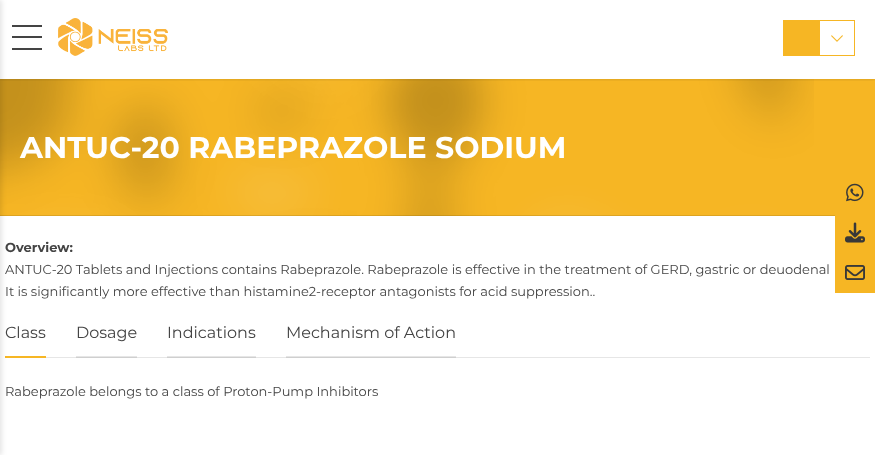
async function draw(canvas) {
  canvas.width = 875;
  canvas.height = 455;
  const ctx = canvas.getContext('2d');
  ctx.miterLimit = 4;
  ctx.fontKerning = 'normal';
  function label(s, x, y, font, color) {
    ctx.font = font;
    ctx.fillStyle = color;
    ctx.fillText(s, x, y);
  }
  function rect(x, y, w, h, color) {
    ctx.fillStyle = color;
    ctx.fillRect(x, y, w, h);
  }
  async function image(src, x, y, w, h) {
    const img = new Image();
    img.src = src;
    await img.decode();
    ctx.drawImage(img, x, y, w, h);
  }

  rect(0, 0, 875, 455, '#fff');
  rect(286, 356, 170, 1, '#e6e6e6');
  rect(167, 356, 89, 1, '#e6e6e6');
  rect(76, 356, 61, 1, '#e6e6e6');
  rect(0, 79, 875, 137, '#f6b624');
  await image('assets/img3.png', 0, 79, 814, 137);
  rect(0, 215, 835, 1, '#0000001a');
  rect(5, 356, 41, 2, '#f6b624');
  ctx.fillStyle = '#0000001a';
  ctx.filter = 'blur(2.5px)';
  ctx.beginPath();
  ctx.rect(-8, 0, 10, 455);
  ctx.fill();
  ctx.filter = 'none';
  ctx.save();
  ctx.beginPath();
  ctx.rect(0, 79, 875, 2);
  ctx.clip();
  ctx.filter = 'blur(1.5px)';
  ctx.beginPath();
  ctx.rect(0, 1, 875, 79);
  ctx.fill();
  ctx.filter = 'none';
  ctx.restore();
  rect(12, 25, 30, 2, '#444');
  rect(12, 36, 30, 2, '#444');
  rect(12, 48, 30, 2, '#444');
  await image('assets/img1.png', 58, 18, 110, 38);
  rect(783, 20, 36, 36, '#f6b624');
  ctx.strokeStyle = '#f6b624';
  ctx.strokeRect(819.5, 20.5, 35, 35);
  await image('assets/img2.png', 831, 35, 12, 7);
  label('ANTUC-20 RABEPRAZOLE SODIUM', 20, 158, 'bold 30px Montserrat', '#fff');
  label('Overview:', 5, 252, 'bold 13px Montserrat', '#444');
  label('ANTUC-20 Tablets and Injections contains Rabeprazole. Rabeprazole is effective in the treatment of GERD, gastric or deuodenal', 5, 274, '13px Montserrat', '#444');
  label('It is significantly more effective than histamine2-receptor antagonists for acid suppression..', 5, 296, '13px Montserrat', '#444');
  rect(46, 357, 824, 1, '#e6e6e6');
  rect(286, 357, 170, 1, '#cfcfcf');
  rect(167, 357, 89, 1, '#cfcfcf');
  rect(76, 357, 61, 1, '#cfcfcf');
  label('Class', 5, 338, '16px Montserrat', '#444');
  label('Dosage', 76, 338, '16px Montserrat', '#444');
  label('Indications', 167, 338, '16px Montserrat', '#444');
  label('Mechanism of Action', 286, 338, '16px Montserrat', '#444');
  label('Rabeprazole belongs to a class of Proton-Pump Inhibitors', 5, 396, '13px Montserrat', '#444');
  await image('assets/img4.png', 846, 183, 18, 19);
  rect(835, 216, 40, 77, '#f6b624');
  await image('assets/img5.png', 845, 222, 20, 21);
  await image('assets/img6.png', 845, 265, 20, 15);
}

draw(document.querySelector('canvas'));
